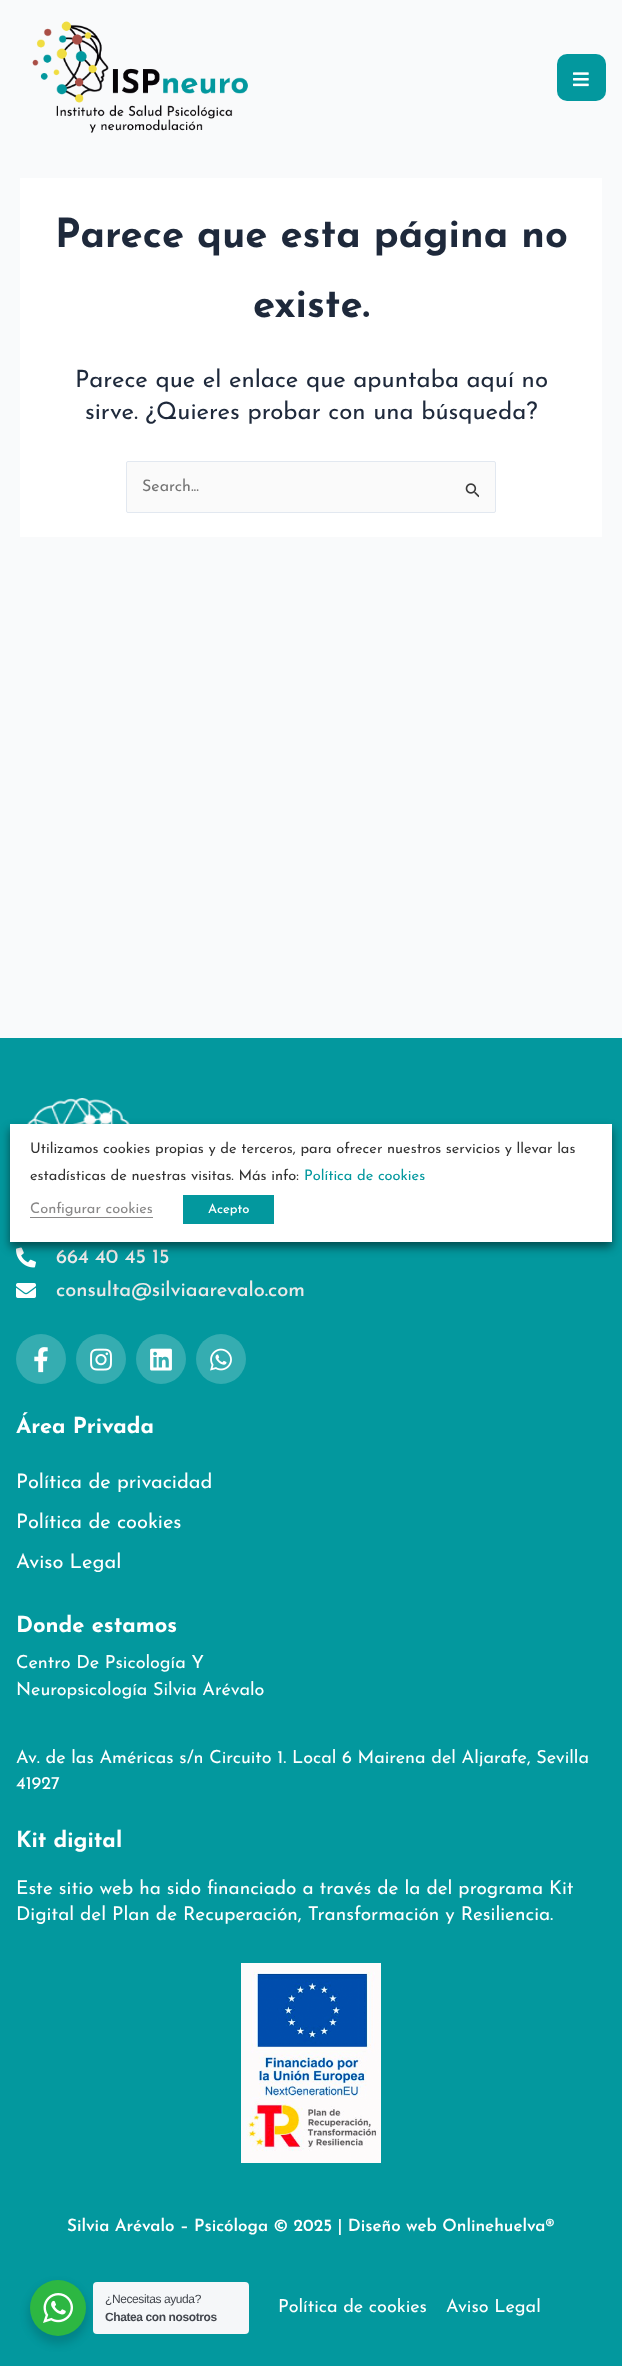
async function draw(canvas) {
  canvas.width = 622;
  canvas.height = 2366;
  const ctx = canvas.getContext('2d');
  ctx.miterLimit = 4;
  ctx.fontKerning = 'normal';
  function label(s, x, y, font, color) {
    ctx.font = font;
    ctx.fillStyle = color;
    ctx.fillText(s, x, y);
  }
  function rect(x, y, w, h, color) {
    ctx.fillStyle = color;
    ctx.fillRect(x, y, w, h);
  }
  function roundedRect(x, y, w, h, r, color) {
    ctx.fillStyle = color;
    ctx.beginPath();
    ctx.roundRect(x, y, w, h, r);
    ctx.fill();
  }
  async function image(src, x, y, w, h) {
    const img = new Image();
    img.src = src;
    await img.decode();
    ctx.drawImage(img, x, y, w, h);
  }

  rect(0, 0, 622, 2366, '#f9fafb');
  await image('assets/img1.png', 32, 21, 216, 112);
  roundedRect(557, 54, 49, 47, 10, '#03989e');
  await image('assets/img2.png', 573, 72, 16, 15);
  rect(20, 178, 582, 359, '#fff');
  label('Parece que esta página no', 55, 247, 'bold 40px Josefin Sans', '#1e293b');
  label('existe.', 253, 317, 'bold 40px Josefin Sans', '#1e293b');
  label('Parece que el enlace que apuntaba aquí no', 75, 387, '24px Josefin Sans', '#1e293b');
  label('sirve. ¿Quieres probar con una búsqueda?', 85, 419, '24px Josefin Sans', '#1e293b');
  ctx.fillStyle = '#fafafa';
  ctx.beginPath();
  ctx.roundRect(126.5, 461.5, 369, 51, 1.5);
  ctx.fill();
  ctx.strokeStyle = '#e2e8f0';
  ctx.stroke();
  label('Search...', 142, 491, '16px Josefin Sans', '#757575');
  await image('assets/img3.png', 465, 483, 14, 15);
  rect(0, 1038, 622, 1328, '#03989e');
  await image('assets/img4.png', 27, 1098, 103, 26);
  await image('assets/img5.png', 16, 1247, 20, 21);
  label('664 40 45 15', 56, 1263, '500 20px Josefin Sans', '#ece9e9');
  await image('assets/img6.png', 16, 1283, 20, 15);
  label('consulta@silviaarevalo.com', 56, 1296, '500 20px Josefin Sans', '#ece9e9');
  ctx.fillStyle = '#35adb1';
  ctx.beginPath();
  ctx.arc(41, 1359, 25, 0, 2 * Math.PI);
  ctx.fill();
  await image('assets/img7.png', 34, 1347, 14, 26);
  ctx.beginPath();
  ctx.arc(101, 1359, 25, 0, 2 * Math.PI);
  ctx.fill();
  await image('assets/img8.png', 90, 1348, 22, 23);
  ctx.beginPath();
  ctx.arc(161, 1359, 25, 0, 2 * Math.PI);
  ctx.fill();
  await image('assets/img9.png', 150, 1348, 22, 23);
  ctx.beginPath();
  ctx.arc(221, 1359, 25, 0, 2 * Math.PI);
  ctx.fill();
  await image('assets/img10.png', 210, 1348, 22, 23);
  label('Área Privada', 16, 1433, 'bold 22px Josefin Sans', '#fff');
  label('Política de privacidad', 16, 1488, '20px Josefin Sans', '#fff');
  label('Política de cookies', 16, 1528, '20px Josefin Sans', '#fff');
  label('Aviso Legal', 16, 1568, '20px Josefin Sans', '#fff');
  label('Donde estamos', 16, 1632, 'bold 22px Josefin Sans', '#fff');
  label('Centro De Psicología Y', 16, 1668, '18px Josefin Sans', '#fff');
  label('Neuropsicología Silvia Arévalo', 16, 1695, '18px Josefin Sans', '#fff');
  label('Av. de las Américas s/n Circuito 1. Local 6 Mairena del Aljarafe, Sevilla', 16, 1763, '18px Josefin Sans', '#fff');
  label('41927', 16, 1789, '18px Josefin Sans', '#fff');
  label('Kit digital', 16, 1847, 'bold 22px Josefin Sans', '#fff');
  label('Este sitio web ha sido financiado a través de la del programa Kit', 16, 1894, '19px Josefin Sans', '#fff');
  label('Digital del Plan de Recuperación, Transformación y Resiliencia.', 16, 1920, '19px Josefin Sans', '#fff');
  await image('assets/img11.png', 241, 1963, 140, 200);
  label('Silvia Arévalo – Psicóloga © 2025 | Diseño web Onlinehuelva®', 67, 2231, '600 17px Josefin Sans', '#fff');
  label('Política de cookies', 278, 2312, '18px Josefin Sans', '#fff');
  label('Aviso Legal', 446, 2312, '18px Josefin Sans', '#fff');
  ctx.fillStyle = '#00000080';
  ctx.filter = 'blur(5px)';
  ctx.beginPath();
  ctx.rect(10, 1129, 602, 118);
  ctx.fill();
  ctx.filter = 'none';
  rect(10, 1124, 602, 118, '#fff');
  label('Utilizamos cookies propias y de terceros, para ofrecer nuestros servicios y llevar las', 30, 1153, '14.65px Josefin Sans', '#333');
  label('estadísticas de nuestras visitas. Más info:', 30, 1180, '14.65px Josefin Sans', '#333');
  label('Política de cookies', 304, 1180, '14.65px Josefin Sans', '#03989e');
  label('Configurar cookies', 30, 1213, '14.65px Josefin Sans', '#898888');
  rect(30, 1217, 123, 1, '#898888');
  rect(183, 1195, 91, 29, '#03989e');
  label('Acepto', 208, 1213, '500 13px Josefin Sans', '#fff');
  ctx.fillStyle = '#00000024';
  ctx.filter = 'blur(4px)';
  ctx.beginPath();
  ctx.roundRect(28, 2284, 60, 60, 30);
  ctx.fill();
  ctx.filter = 'none';
  ctx.fillStyle = '#2db742';
  ctx.beginPath();
  ctx.arc(58, 2308, 28, 0, 2 * Math.PI);
  ctx.fill();
  await image('assets/img12.png', 43, 2293, 30, 30);
  roundedRect(93, 2282, 156, 52, 4, '#f5f7f9');
  ctx.letterSpacing = '-0.4px';
  label('¿Necesitas ayuda?', 105, 2303, '12px Liberation Sans', '#43474e');
  label('Chatea con nosotros', 105, 2321, 'bold 12px Liberation Sans', '#43474e');
}

draw(document.querySelector('canvas'));
